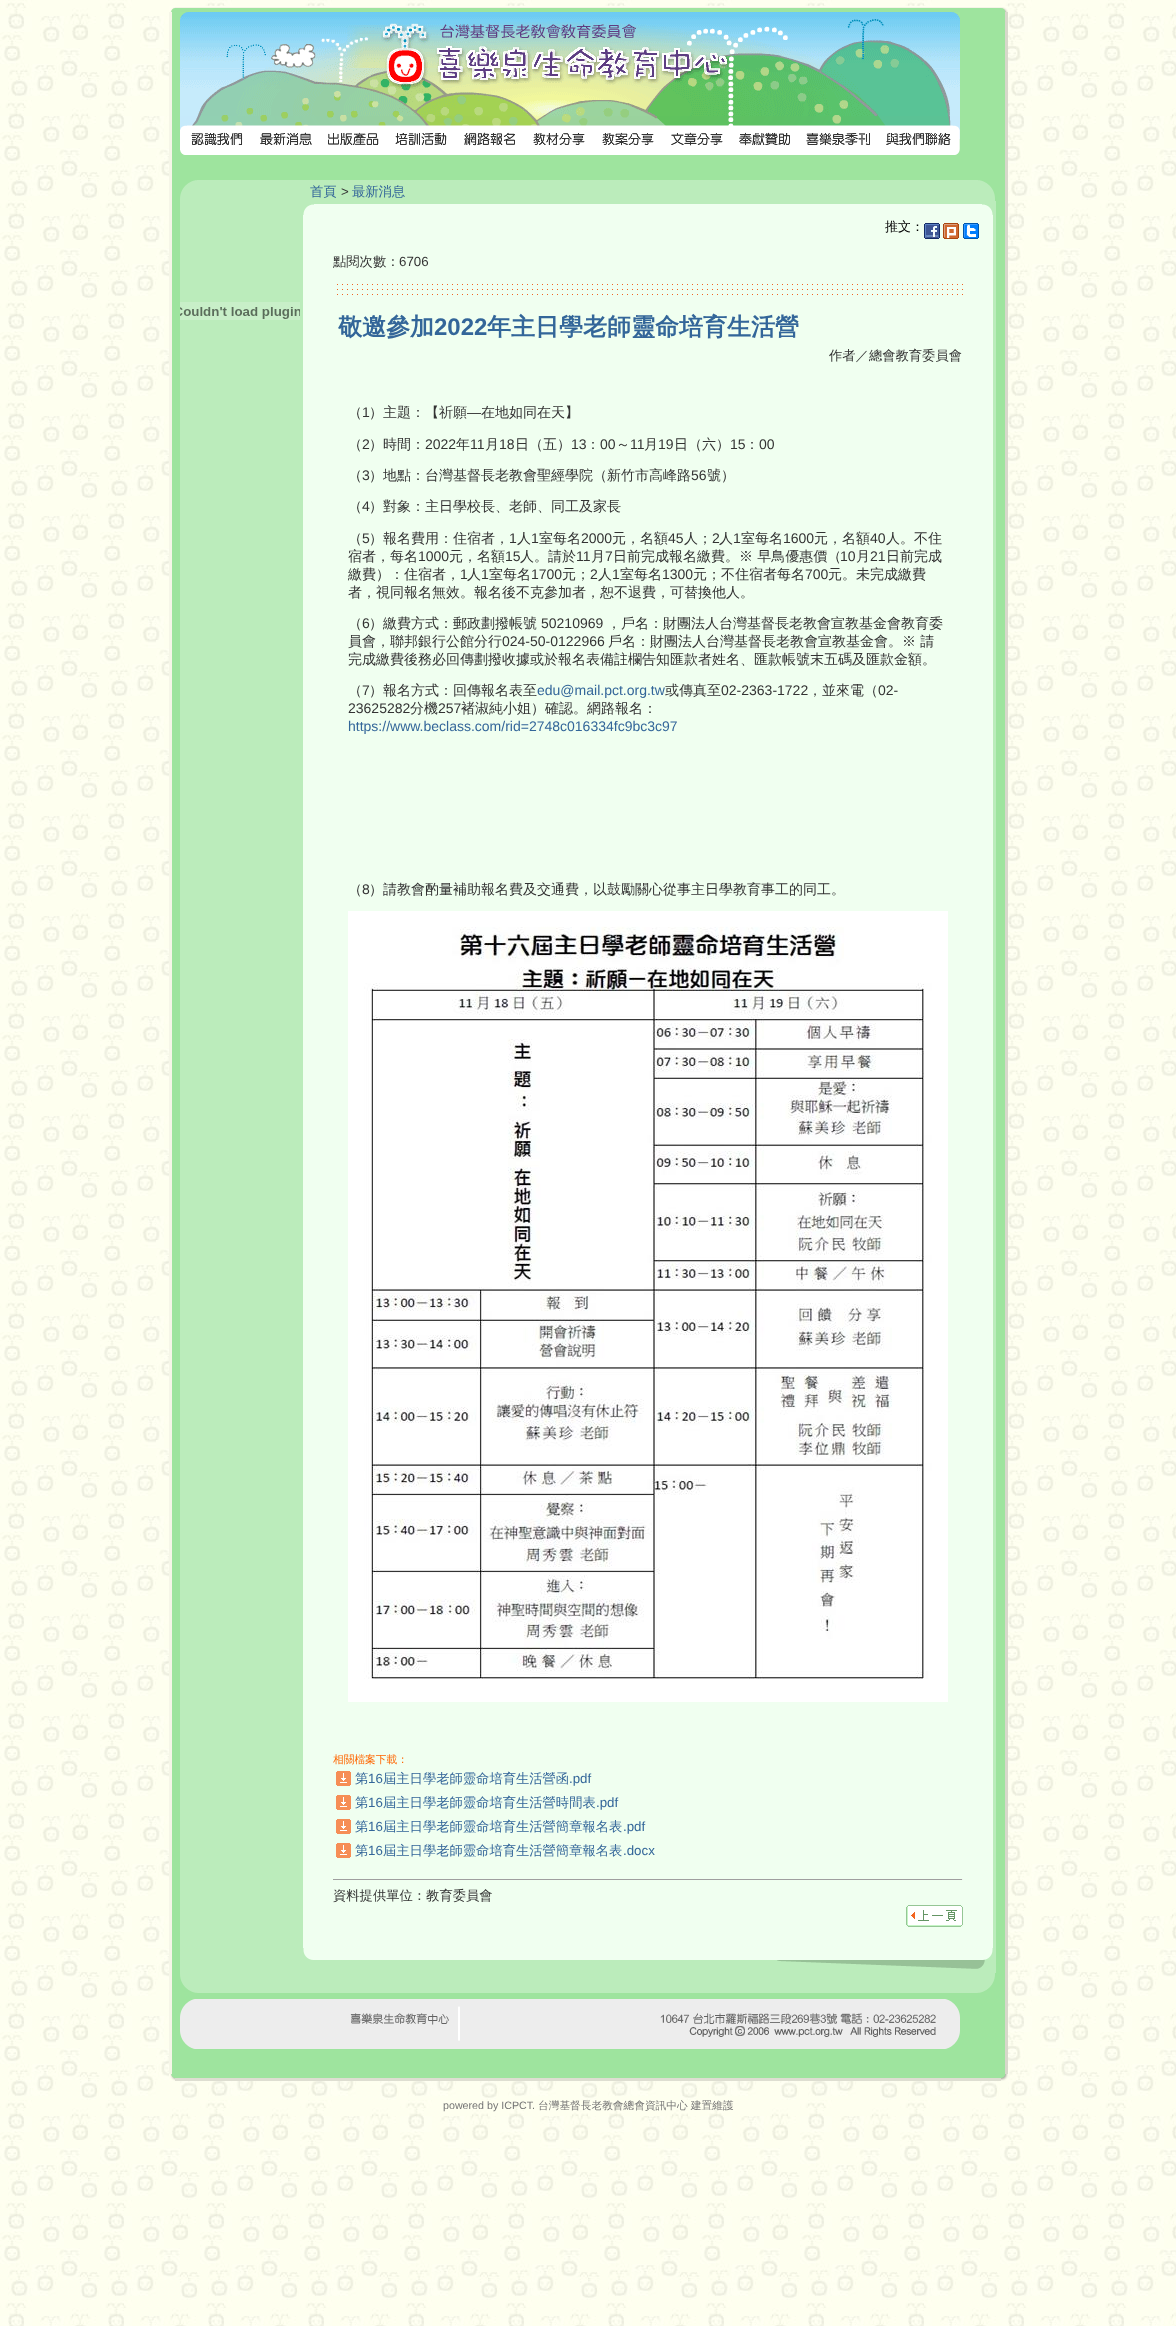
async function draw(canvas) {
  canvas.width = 1176;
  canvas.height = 2326;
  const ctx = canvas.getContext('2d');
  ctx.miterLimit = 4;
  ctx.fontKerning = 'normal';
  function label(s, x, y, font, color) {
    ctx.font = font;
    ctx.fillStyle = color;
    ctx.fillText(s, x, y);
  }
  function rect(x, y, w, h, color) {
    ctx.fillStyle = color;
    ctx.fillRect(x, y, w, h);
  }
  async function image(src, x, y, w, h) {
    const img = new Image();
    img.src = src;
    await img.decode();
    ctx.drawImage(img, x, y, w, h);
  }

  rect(0, 0, 1176, 2326, '#fff');
  await image('assets/img1.png', 0, 0, 1176, 2326);
  rect(172, 8, 833, 2070, '#9ee49e');
  await image('assets/img2.png', 169, 6, 6, 6);
  await image('assets/img3.png', 175, 6, 826, 2);
  await image('assets/img4.png', 1001, 6, 7, 6);
  rect(169, 12, 3, 2062, '#f6f6e8');
  await image('assets/img5.png', 180, 12, 780, 104);
  await image('assets/img6.png', 180, 116, 71, 39);
  await image('assets/img7.png', 251, 116, 68, 39);
  await image('assets/img8.png', 319, 116, 69, 39);
  await image('assets/img9.png', 388, 116, 68, 39);
  await image('assets/img10.png', 456, 116, 68, 39);
  await image('assets/img11.png', 524, 116, 70, 39);
  await image('assets/img12.png', 594, 116, 69, 39);
  await image('assets/img13.png', 663, 116, 68, 39);
  await image('assets/img14.png', 731, 116, 68, 39);
  await image('assets/img15.png', 799, 116, 79, 39);
  await image('assets/img16.png', 878, 116, 82, 39);
  rect(1005, 12, 3, 2062, '#d8d8cb');
  await image('assets/img17.png', 180, 180, 20, 21);
  rect(200, 180, 775, 21, '#bbecbb');
  label('首頁', 310, 196, '500 13.3px WenQuanYi Zen Hei', '#369');
  label('>', 341, 196, '13.3px Liberation Sans', '#333');
  label('最新消息', 352, 196, '500 13.3px WenQuanYi Zen Hei', '#369');
  await image('assets/img18.png', 975, 180, 20, 21);
  rect(180, 201, 816, 1772, '#bbecbb');
  await image('assets/img19.png', 180, 302, 120, 18);
  await image('assets/img20.png', 303, 204, 11, 11);
  rect(314, 204, 668, 11, '#f0fff0');
  await image('assets/img21.png', 982, 204, 11, 11);
  rect(303, 215, 690, 1733, '#f0fff0');
  label('推文：', 885, 231, '500 13px WenQuanYi Zen Hei', '#000');
  await image('assets/img22.png', 924, 223, 16, 16);
  await image('assets/img23.png', 943, 223, 16, 16);
  await image('assets/img24.png', 963, 223, 16, 16);
  label('點閱次數：', 333, 266, '500 13.3px WenQuanYi Zen Hei', '#333');
  label('6706', 399, 266, '13.3px Liberation Sans', '#333');
  await image('assets/img25.png', 337, 284, 626, 11);
  label('敬邀參加', 338, 335, 'bold 24px WenQuanYi Zen Hei', '#369');
  label('2022', 434, 335, 'bold 24px Liberation Sans', '#369');
  label('年主日學老師靈命培育生活營', 487, 335, 'bold 24px WenQuanYi Zen Hei', '#369');
  label('作者／總會教育委員會', 829, 360, '500 13.3px WenQuanYi Zen Hei', '#333');
  label('（', 348, 417, '500 14px WenQuanYi Zen Hei', '#333');
  label('1', 362, 417, '14px Liberation Sans', '#333');
  label('）主題：【祈願', 369, 417, '500 14px WenQuanYi Zen Hei', '#333');
  label('—', 467, 417, '14px Liberation Sans', '#333');
  label('在地如同在天】', 481, 417, '500 14px WenQuanYi Zen Hei', '#333');
  label('（', 348, 449, '500 14px WenQuanYi Zen Hei', '#333');
  label('2', 362, 449, '14px Liberation Sans', '#333');
  label('）時間：', 369, 449, '500 14px WenQuanYi Zen Hei', '#333');
  label('2022', 425, 449, '14px Liberation Sans', '#333');
  label('年', 456, 449, '500 14px WenQuanYi Zen Hei', '#333');
  label('11', 470, 449, '14px Liberation Sans', '#333');
  label('月', 485, 449, '500 14px WenQuanYi Zen Hei', '#333');
  label('18', 499, 449, '14px Liberation Sans', '#333');
  label('日（五）', 515, 449, '500 14px WenQuanYi Zen Hei', '#333');
  label('13', 571, 449, '14px Liberation Sans', '#333');
  label('：', 586, 449, '500 14px WenQuanYi Zen Hei', '#333');
  label('00', 600, 449, '14px Liberation Sans', '#333');
  label('～', 616, 449, '500 14px WenQuanYi Zen Hei', '#333');
  label('11', 630, 449, '14px Liberation Sans', '#333');
  label('月', 644, 449, '500 14px WenQuanYi Zen Hei', '#333');
  label('19', 658, 449, '14px Liberation Sans', '#333');
  label('日（六）', 674, 449, '500 14px WenQuanYi Zen Hei', '#333');
  label('15', 730, 449, '14px Liberation Sans', '#333');
  label('：', 745, 449, '500 14px WenQuanYi Zen Hei', '#333');
  label('00', 759, 449, '14px Liberation Sans', '#333');
  label('（', 348, 480, '500 14px WenQuanYi Zen Hei', '#333');
  label('3', 362, 480, '14px Liberation Sans', '#333');
  label('）地點：台灣基督長老教會聖經學院（新竹市高峰路', 369, 480, '500 14px WenQuanYi Zen Hei', '#333');
  label('56', 691, 480, '14px Liberation Sans', '#333');
  label('號）', 707, 480, '500 14px WenQuanYi Zen Hei', '#333');
  label('（', 348, 511, '500 14px WenQuanYi Zen Hei', '#333');
  label('4', 362, 511, '14px Liberation Sans', '#333');
  label('）對象：主日學校長、老師、同工及家長', 369, 511, '500 14px WenQuanYi Zen Hei', '#333');
  label('（', 348, 543, '500 14px WenQuanYi Zen Hei', '#333');
  label('5', 362, 543, '14px Liberation Sans', '#333');
  label('）報名費用：住宿者，', 369, 543, '500 14px WenQuanYi Zen Hei', '#333');
  label('1', 509, 543, '14px Liberation Sans', '#333');
  label('人', 517, 543, '500 14px WenQuanYi Zen Hei', '#333');
  label('1', 531, 543, '14px Liberation Sans', '#333');
  label('室每名', 539, 543, '500 14px WenQuanYi Zen Hei', '#333');
  label('2000', 581, 543, '14px Liberation Sans', '#333');
  label('元，名額', 612, 543, '500 14px WenQuanYi Zen Hei', '#333');
  label('45', 668, 543, '14px Liberation Sans', '#333');
  label('人；', 684, 543, '500 14px WenQuanYi Zen Hei', '#333');
  label('2', 712, 543, '14px Liberation Sans', '#333');
  label('人', 719, 543, '500 14px WenQuanYi Zen Hei', '#333');
  label('1', 733, 543, '14px Liberation Sans', '#333');
  label('室每名', 741, 543, '500 14px WenQuanYi Zen Hei', '#333');
  label('1600', 783, 543, '14px Liberation Sans', '#333');
  label('元，名額', 814, 543, '500 14px WenQuanYi Zen Hei', '#333');
  label('40', 870, 543, '14px Liberation Sans', '#333');
  label('人。不住', 886, 543, '500 14px WenQuanYi Zen Hei', '#333');
  label('宿者，每名', 348, 561, '500 14px WenQuanYi Zen Hei', '#333');
  label('1000', 418, 561, '14px Liberation Sans', '#333');
  label('元，名額', 449, 561, '500 14px WenQuanYi Zen Hei', '#333');
  label('15', 505, 561, '14px Liberation Sans', '#333');
  label('人。請於', 520, 561, '500 14px WenQuanYi Zen Hei', '#333');
  label('11', 576, 561, '14px Liberation Sans', '#333');
  label('月', 591, 561, '500 14px WenQuanYi Zen Hei', '#333');
  label('7', 605, 561, '14px Liberation Sans', '#333');
  label('日前完成報名繳費。※ 早鳥優惠價（', 613, 561, '500 14px WenQuanYi Zen Hei', '#333');
  label('10', 840, 561, '14px Liberation Sans', '#333');
  label('月', 856, 561, '500 14px WenQuanYi Zen Hei', '#333');
  label('21', 870, 561, '14px Liberation Sans', '#333');
  label('日前完成', 886, 561, '500 14px WenQuanYi Zen Hei', '#333');
  label('繳費）：住宿者，', 348, 579, '500 14px WenQuanYi Zen Hei', '#333');
  label('1', 460, 579, '14px Liberation Sans', '#333');
  label('人', 467, 579, '500 14px WenQuanYi Zen Hei', '#333');
  label('1', 481, 579, '14px Liberation Sans', '#333');
  label('室每名', 489, 579, '500 14px WenQuanYi Zen Hei', '#333');
  label('1700', 531, 579, '14px Liberation Sans', '#333');
  label('元；', 562, 579, '500 14px WenQuanYi Zen Hei', '#333');
  label('2', 590, 579, '14px Liberation Sans', '#333');
  label('人', 598, 579, '500 14px WenQuanYi Zen Hei', '#333');
  label('1', 612, 579, '14px Liberation Sans', '#333');
  label('室每名', 620, 579, '500 14px WenQuanYi Zen Hei', '#333');
  label('1300', 662, 579, '14px Liberation Sans', '#333');
  label('元；不住宿者每名', 693, 579, '500 14px WenQuanYi Zen Hei', '#333');
  label('700', 805, 579, '14px Liberation Sans', '#333');
  label('元。未完成繳費', 828, 579, '500 14px WenQuanYi Zen Hei', '#333');
  label('者，視同報名無效。報名後不克參加者，恕不退費，可替換他人。', 348, 597, '500 14px WenQuanYi Zen Hei', '#333');
  label('（', 348, 628, '500 14px WenQuanYi Zen Hei', '#333');
  label('6', 362, 628, '14px Liberation Sans', '#333');
  label('）繳費方式：郵政劃撥帳號', 369, 628, '500 14px WenQuanYi Zen Hei', '#333');
  label('50210969', 541, 628, '14px Liberation Sans', '#333');
  label('，戶名：財團法人台灣基督長老教會宣教基金會教育委', 607, 628, '500 14px WenQuanYi Zen Hei', '#333');
  label('員會，聯邦銀行公館分行', 348, 646, '500 14px WenQuanYi Zen Hei', '#333');
  label('024-50-0122966', 502, 646, '14px Liberation Sans', '#333');
  label('戶名：財團法人台灣基督長老教會宣教基金會。※ 請', 608, 646, '500 14px WenQuanYi Zen Hei', '#333');
  label('完成繳費後務必回傳劃撥收據或於報名表備註欄告知匯款者姓名、匯款帳號末五碼及匯款金額。', 348, 664, '500 14px WenQuanYi Zen Hei', '#333');
  label('（', 348, 695, '500 14px WenQuanYi Zen Hei', '#333');
  label('7', 362, 695, '14px Liberation Sans', '#333');
  label('）報名方式：回傳報名表至', 369, 695, '500 14px WenQuanYi Zen Hei', '#333');
  label('edu@mail.pct.org.tw', 537, 695, '14px Liberation Sans', '#369');
  label('或傳真至', 665, 695, '500 14px WenQuanYi Zen Hei', '#333');
  label('02-2363-1722', 721, 695, '14px Liberation Sans', '#333');
  label('，並來電（', 808, 695, '500 14px WenQuanYi Zen Hei', '#333');
  label('02-', 878, 695, '14px Liberation Sans', '#333');
  label('23625282', 348, 713, '14px Liberation Sans', '#333');
  label('分機', 410, 713, '500 14px WenQuanYi Zen Hei', '#333');
  label('257', 438, 713, '14px Liberation Sans', '#333');
  label('褚淑純小姐）確認。網路報名：', 461, 713, '500 14px WenQuanYi Zen Hei', '#333');
  label('https://www.beclass.com/rid=2748c016334fc9bc3c97', 348, 731, '14px Liberation Sans', '#369');
  label('（', 348, 894, '500 14px WenQuanYi Zen Hei', '#333');
  label('8', 362, 894, '14px Liberation Sans', '#333');
  label('）請教會酌量補助報名費及交通費，以鼓勵關心從事主日學教育事工的同工。', 369, 894, '500 14px WenQuanYi Zen Hei', '#333');
  await image('assets/img26.png', 348, 911, 600, 791);
  label('相關檔案下載：', 333, 1763, '500 10.7px WenQuanYi Zen Hei', '#f60');
  await image('assets/img27.png', 336, 1771, 15, 15);
  label('第', 355, 1783, '500 13.3px WenQuanYi Zen Hei', '#369');
  label('16', 368, 1783, '13.3px Liberation Sans', '#369');
  label('屆主日學老師靈命培育生活營函', 383, 1783, '500 13.3px WenQuanYi Zen Hei', '#369');
  label('.pdf', 569, 1783, '13.3px Liberation Sans', '#369');
  await image('assets/img27.png', 336, 1795, 15, 15);
  label('第', 355, 1807, '500 13.3px WenQuanYi Zen Hei', '#369');
  label('16', 368, 1807, '13.3px Liberation Sans', '#369');
  label('屆主日學老師靈命培育生活營時間表', 383, 1807, '500 13.3px WenQuanYi Zen Hei', '#369');
  label('.pdf', 596, 1807, '13.3px Liberation Sans', '#369');
  await image('assets/img27.png', 336, 1819, 15, 15);
  label('第', 355, 1831, '500 13.3px WenQuanYi Zen Hei', '#369');
  label('16', 368, 1831, '13.3px Liberation Sans', '#369');
  label('屆主日學老師靈命培育生活營簡章報名表', 383, 1831, '500 13.3px WenQuanYi Zen Hei', '#369');
  label('.pdf', 623, 1831, '13.3px Liberation Sans', '#369');
  await image('assets/img27.png', 336, 1843, 15, 15);
  label('第', 355, 1855, '500 13.3px WenQuanYi Zen Hei', '#369');
  label('16', 368, 1855, '13.3px Liberation Sans', '#369');
  label('屆主日學老師靈命培育生活營簡章報名表', 383, 1855, '500 13.3px WenQuanYi Zen Hei', '#369');
  label('.docx', 623, 1855, '13.3px Liberation Sans', '#369');
  rect(333, 1879, 630, 1, '#9f9f9f');
  rect(962, 1879, 1, 1, '#eee');
  label('資料提供單位：教育委員會', 333, 1900, '500 13.3px WenQuanYi Zen Hei', '#333');
  await image('assets/img28.png', 906, 1905, 57, 22);
  await image('assets/img29.png', 303, 1948, 11, 12);
  rect(314, 1948, 668, 12, '#f0fff0');
  await image('assets/img30.png', 777, 1960, 205, 9);
  await image('assets/img31.png', 982, 1948, 11, 18);
  await image('assets/img32.png', 180, 1973, 20, 20);
  rect(200, 1973, 775, 20, '#bbecbb');
  await image('assets/img33.png', 975, 1973, 20, 20);
  await image('assets/img34.png', 180, 1999, 780, 50);
  await image('assets/img35.png', 169, 2074, 6, 7);
  rect(175, 2078, 826, 3, '#deded1');
  await image('assets/img36.png', 1001, 2074, 7, 7);
  label('powered by ICPCT.', 443, 2109, '10.7px Liberation Sans', '#757575');
  label('台灣基督長老教會總會資訊中心 建置維護', 538, 2109, '500 10.7px WenQuanYi Zen Hei', '#757575');
}

draw(document.querySelector('canvas'));
